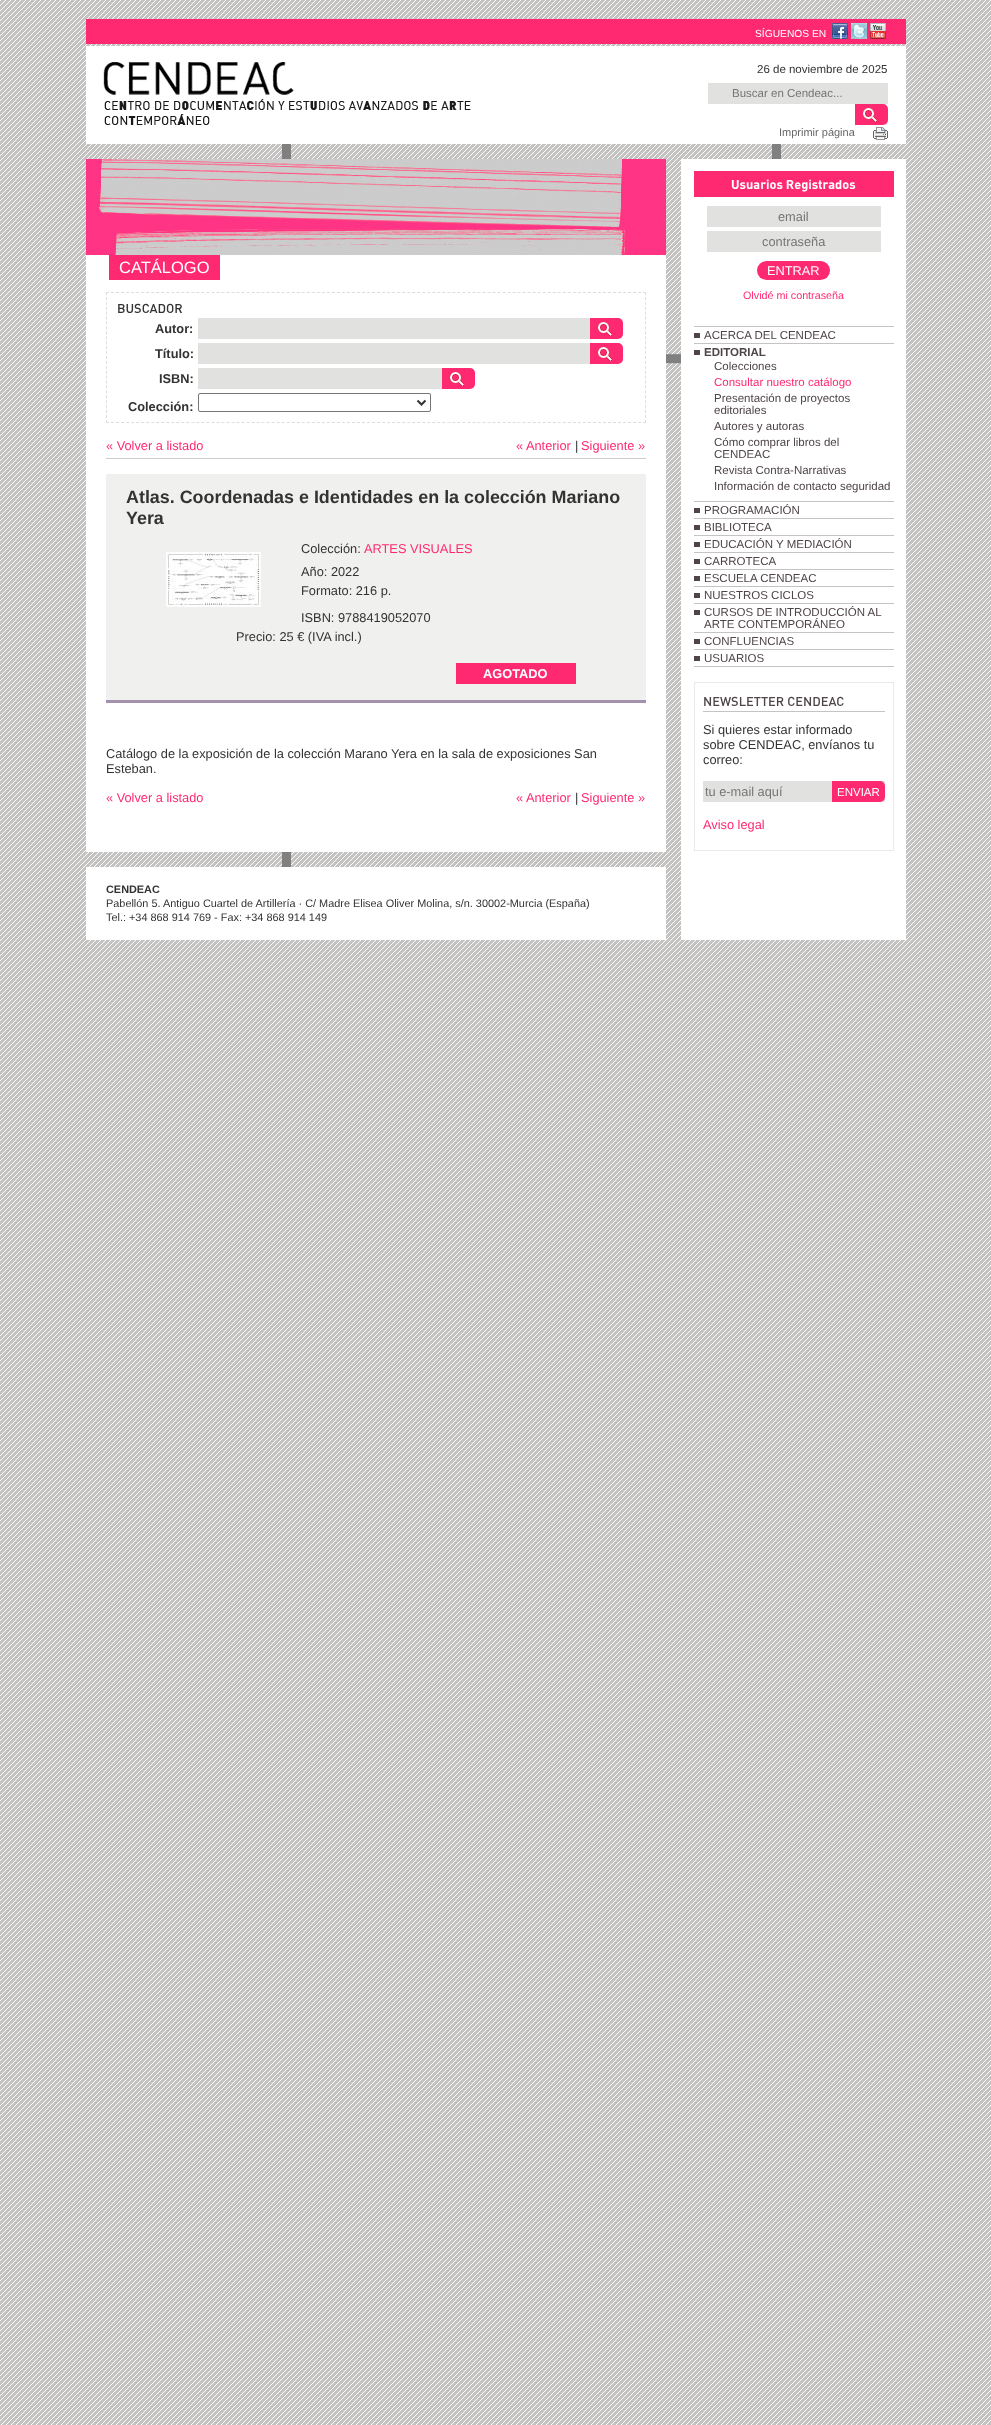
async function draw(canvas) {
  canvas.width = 991;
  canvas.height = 2425;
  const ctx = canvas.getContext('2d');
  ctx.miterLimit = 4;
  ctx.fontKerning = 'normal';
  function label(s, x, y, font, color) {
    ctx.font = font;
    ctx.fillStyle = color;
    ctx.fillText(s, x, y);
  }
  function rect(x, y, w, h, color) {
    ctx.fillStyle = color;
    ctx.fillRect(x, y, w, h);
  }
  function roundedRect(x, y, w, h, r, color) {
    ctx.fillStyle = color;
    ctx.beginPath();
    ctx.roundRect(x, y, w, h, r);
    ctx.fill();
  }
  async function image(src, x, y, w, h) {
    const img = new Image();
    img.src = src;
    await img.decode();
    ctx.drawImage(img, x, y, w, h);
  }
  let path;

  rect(0, 0, 991, 2425, '#c4c3c1');
  await image('assets/img1.png', 0, 0, 991, 2425);
  await image('assets/img2.png', 282, 144, 499, 723);
  rect(86, 19, 820, 25, '#ff2972');
  label('SÍGUENOS EN', 755, 37, '10.25px Liberation Sans', '#fff');
  await image('assets/img3.png', 832, 23, 16, 16);
  await image('assets/img4.png', 851, 23, 16, 16);
  await image('assets/img5.png', 870, 23, 16, 16);
  rect(86, 46, 820, 98, '#fff');
  await image('assets/img6.png', 103, 62, 368, 63);
  label('26 de noviembre de 2025', 757, 73, '11.5px Liberation Sans', '#333');
  rect(708, 83, 180, 21, '#e1e1e0');
  label('Buscar en Cendeac...', 732, 97, '11.5px Liberation Sans', '#757575');
  ctx.fillStyle = '#ff2972';
  ctx.beginPath();
  ctx.roundRect(855, 104, 33, 21, [0, 5, 5, 0]);
  ctx.fill();
  await image('assets/img7.png', 863, 108, 14, 14);
  await image('assets/img8.png', 873, 127, 15, 13);
  label('Imprimir página', 779, 136, '11px Liberation Sans', '#666');
  rect(681, 159, 225, 781, '#fff');
  await image('assets/img9.png', 86, 159, 580, 96);
  rect(694, 171, 200, 26, '#ff2972');
  label('Usuarios Registrados', 731, 189, 'bold 12.8px DIN', '#fff');
  rect(707, 206, 174, 21, '#e1e1e0');
  label('email', 778, 221, '12.8px Liberation Sans', '#757575');
  rect(707, 231, 174, 21, '#e1e1e0');
  label('contraseña', 762, 246, '12.8px Liberation Sans', '#757575');
  roundedRect(757, 261, 73, 19, 9.5, '#ff2972');
  label('ENTRAR', 767, 275, '12.8px Liberation Sans', '#fff');
  label('Olvidé mi contraseña', 743, 299, '10.75px Liberation Sans', '#ff2972');
  rect(694, 666, 200, 1, '#c4c4c2');
  rect(694, 333, 6, 5, '#4f4547');
  rect(694, 326, 200, 1, '#c4c4c2');
  label('ACERCA DEL CENDEAC', 704, 339, '11.5px Liberation Sans', '#4f4547');
  rect(694, 350, 6, 5, '#4f4547');
  rect(694, 343, 200, 1, '#c4c4c2');
  label('EDITORIAL', 704, 356, 'bold 11.5px Liberation Sans', '#4f4547');
  label('Colecciones', 714, 370, '11.5px Liberation Sans', '#4f4547');
  label('Consultar nuestro catálogo', 714, 386, '11.5px Liberation Sans', '#ff2972');
  label('Presentación de proyectos', 714, 402, '11.5px Liberation Sans', '#4f4547');
  label('editoriales', 714, 414, '11.5px Liberation Sans', '#4f4547');
  label('Autores y autoras', 714, 430, '11.5px Liberation Sans', '#4f4547');
  label('Cómo comprar libros del', 714, 446, '11.5px Liberation Sans', '#4f4547');
  label('CENDEAC', 714, 458, '11.5px Liberation Sans', '#4f4547');
  label('Revista Contra-Narrativas', 714, 474, '11.5px Liberation Sans', '#4f4547');
  label('Información de contacto seguridad', 714, 490, '11.5px Liberation Sans', '#4f4547');
  rect(694, 508, 6, 5, '#4f4547');
  rect(694, 501, 200, 1, '#c4c4c2');
  label('PROGRAMACIÓN', 704, 514, '11.5px Liberation Sans', '#4f4547');
  rect(694, 525, 6, 5, '#4f4547');
  rect(694, 518, 200, 1, '#c4c4c2');
  label('BIBLIOTECA', 704, 531, '11.5px Liberation Sans', '#4f4547');
  rect(694, 542, 6, 5, '#4f4547');
  rect(694, 535, 200, 1, '#c4c4c2');
  label('EDUCACIÓN Y MEDIACIÓN', 704, 548, '11.5px Liberation Sans', '#4f4547');
  rect(694, 559, 6, 5, '#4f4547');
  rect(694, 552, 200, 1, '#c4c4c2');
  label('CARROTECA', 704, 565, '11.5px Liberation Sans', '#4f4547');
  rect(694, 576, 6, 5, '#4f4547');
  rect(694, 569, 200, 1, '#c4c4c2');
  label('ESCUELA CENDEAC', 704, 582, '11.5px Liberation Sans', '#4f4547');
  rect(694, 593, 6, 5, '#4f4547');
  rect(694, 586, 200, 1, '#c4c4c2');
  label('NUESTROS CICLOS', 704, 599, '11.5px Liberation Sans', '#4f4547');
  rect(694, 610, 6, 5, '#4f4547');
  rect(694, 603, 200, 1, '#c4c4c2');
  label('CURSOS DE INTRODUCCIÓN AL', 704, 616, '11.5px Liberation Sans', '#4f4547');
  label('ARTE CONTEMPORÁNEO', 704, 628, '11.5px Liberation Sans', '#4f4547');
  rect(694, 639, 6, 5, '#4f4547');
  rect(694, 632, 200, 1, '#c4c4c2');
  label('CONFLUENCIAS', 704, 645, '11.5px Liberation Sans', '#4f4547');
  rect(694, 656, 6, 5, '#4f4547');
  rect(694, 649, 200, 1, '#c4c4c2');
  label('USUARIOS', 704, 662, '11.5px Liberation Sans', '#4f4547');
  ctx.strokeStyle = '#eae9e9';
  ctx.strokeRect(694.5, 682.5, 199, 168);
  rect(703, 711, 182, 1, '#c4c4c2');
  label('NEWSLETTER CENDEAC', 703, 706, '500 12.8px DIN', '#4f4547');
  label('Si quieres estar informado', 703, 734, '12.8px Liberation Sans', '#333');
  label('sobre CENDEAC, envíanos tu', 703, 749, '12.8px Liberation Sans', '#333');
  label('correo:', 703, 764, '12.8px Liberation Sans', '#333');
  rect(703, 781, 182, 21, '#e1e1e0');
  label('tu e-mail aquí', 705, 796, '12.8px Liberation Sans', '#757575');
  ctx.fillStyle = '#ff2972';
  ctx.beginPath();
  ctx.roundRect(832, 781, 53, 21, [0, 5, 5, 0]);
  ctx.fill();
  label('ENVIAR', 837, 796, '11.5px Liberation Sans', '#fff');
  label('Aviso legal', 703, 829, '12.8px Liberation Sans', '#ff2972');
  rect(86, 255, 580, 597, '#fff');
  rect(109, 255, 111, 25, '#ff2972');
  label('CATÁLOGO', 119, 273, '16.5px Liberation Sans', '#fff');
  path = new Path2D('M106 292.5H646');
  ctx.strokeStyle = '#ddd';
  ctx.setLineDash([3, 2.02]);
  ctx.stroke(path);
  path = new Path2D('M645.5 292V423');
  ctx.setLineDash([3, 1.92]);
  ctx.stroke(path);
  path = new Path2D('M106 422.5H646');
  ctx.setLineDash([3, 2.02]);
  ctx.stroke(path);
  path = new Path2D('M106.5 292V423');
  ctx.setLineDash([3, 1.92]);
  ctx.stroke(path);
  label('BUSCADOR', 117, 313, '500 12.8px DIN', '#333');
  label('Autor:', 155, 333, 'bold 12.8px Liberation Sans', '#333');
  rect(198, 318, 392, 21, '#e1e1e0');
  ctx.fillStyle = '#ff2972';
  ctx.beginPath();
  ctx.roundRect(590, 318, 33, 21, [0, 5, 5, 0]);
  ctx.fill();
  await image('assets/img7.png', 598, 322, 14, 14);
  label('Título:', 155, 358, 'bold 12.8px Liberation Sans', '#333');
  rect(198, 343, 392, 21, '#e1e1e0');
  ctx.fillStyle = '#ff2972';
  ctx.beginPath();
  ctx.roundRect(590, 343, 33, 21, [0, 5, 5, 0]);
  ctx.fill();
  await image('assets/img7.png', 598, 347, 14, 14);
  label('ISBN:', 159, 383, 'bold 12.8px Liberation Sans', '#333');
  rect(198, 368, 244, 21, '#e1e1e0');
  ctx.fillStyle = '#ff2972';
  ctx.beginPath();
  ctx.roundRect(442, 368, 33, 21, [0, 5, 5, 0]);
  ctx.fill();
  await image('assets/img7.png', 450, 372, 14, 14);
  label('Colección:', 128, 411, 'bold 12.8px Liberation Sans', '#333');
  ctx.beginPath();
  ctx.roundRect(198.5, 393.5, 232, 18, 1.5);
  ctx.strokeStyle = '#767676';
  ctx.setLineDash([]);
  ctx.stroke();
  path = new Path2D('M417.5 400.5L421.5 404.5L425.5 400.5');
  ctx.strokeStyle = '#333';
  ctx.lineWidth = 2;
  ctx.stroke(path);
  rect(106, 458, 540, 1, '#ccc');
  label('« Volver a listado', 106, 450, '12.8px Liberation Sans', '#ff2972');
  label('« Anterior', 516, 450, '12.8px Liberation Sans', '#ff2972');
  label('|', 575, 450, '12.8px Liberation Sans', '#333');
  label('Siguiente »', 581, 450, '12.8px Liberation Sans', '#ff2972');
  rect(106, 474, 540, 226, '#f0f0ef');
  rect(106, 700, 540, 3, '#a491ad');
  label('Atlas. Coordenadas e Identidades en la colección Mariano', 126, 503, 'bold 17.9px Liberation Sans', '#333');
  label('Yera', 126, 524, 'bold 17.9px Liberation Sans', '#333');
  await image('assets/img10.png', 166, 552, 95, 55);
  label('Colección:', 301, 553, '12.8px Liberation Sans', '#333');
  label('ARTES VISUALES', 364, 553, '12.8px Liberation Sans', '#ff2972');
  label('Año: 2022', 301, 576, '12.8px Liberation Sans', '#333');
  label('Formato: 216 p.', 301, 595, '12.8px Liberation Sans', '#333');
  label('ISBN: 9788419052070', 301, 622, '12.8px Liberation Sans', '#333');
  label('Precio: 25 € (IVA incl.)', 236, 641, '12.8px Liberation Sans', '#333');
  rect(456, 663, 120, 21, '#ff2972');
  label('AGOTADO', 483, 678, 'bold 12.8px Liberation Sans', '#fff');
  label('Catálogo de la exposición de la colección Marano Yera en la sala de exposiciones San', 106, 758, '12.8px Liberation Sans', '#333');
  label('Esteban.', 106, 773, '12.8px Liberation Sans', '#333');
  label('« Volver a listado', 106, 802, '12.8px Liberation Sans', '#ff2972');
  label('« Anterior', 516, 802, '12.8px Liberation Sans', '#ff2972');
  label('|', 575, 802, '12.8px Liberation Sans', '#333');
  label('Siguiente »', 581, 802, '12.8px Liberation Sans', '#ff2972');
  rect(86, 867, 580, 73, '#fff');
  label('CENDEAC', 106, 893, 'bold 10.9px Liberation Sans', '#333');
  label('Pabellón 5. Antiguo Cuartel de Artillería · C/ Madre Elisea Oliver Molina, s/n. 30002-Murcia (España)', 106, 907, '10.9px Liberation Sans', '#333');
  label('Tel.: +34 868 914 769 - Fax: +34 868 914 149', 106, 921, '10.9px Liberation Sans', '#333');
}

draw(document.querySelector('canvas'));
